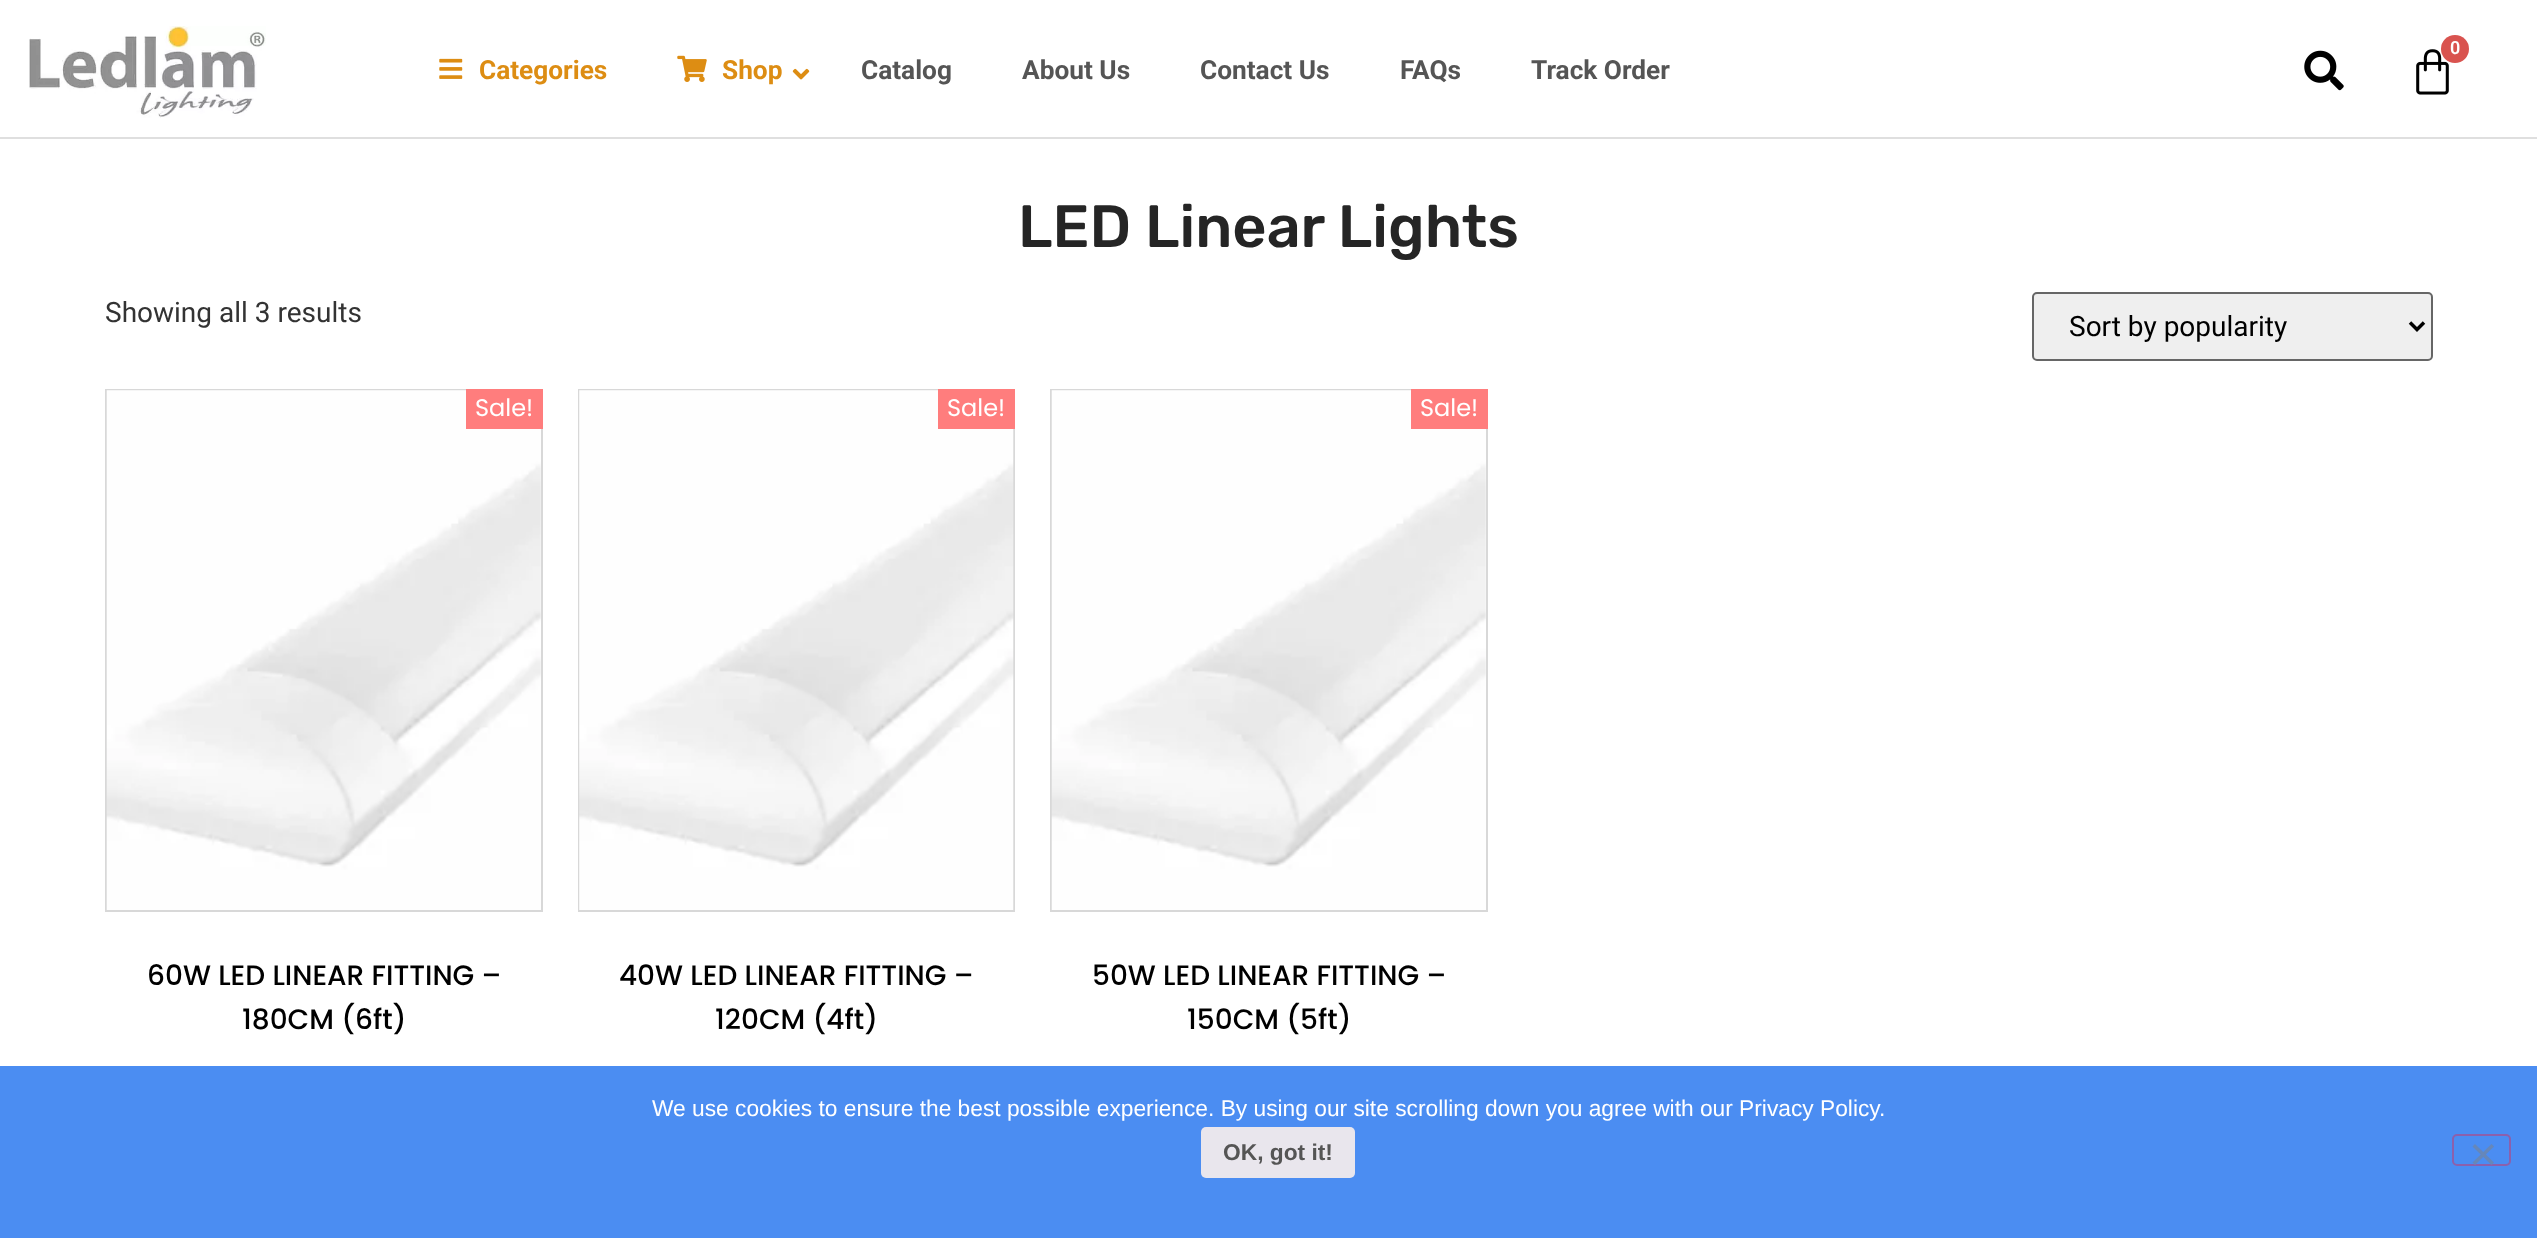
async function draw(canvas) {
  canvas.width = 2537;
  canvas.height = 1238;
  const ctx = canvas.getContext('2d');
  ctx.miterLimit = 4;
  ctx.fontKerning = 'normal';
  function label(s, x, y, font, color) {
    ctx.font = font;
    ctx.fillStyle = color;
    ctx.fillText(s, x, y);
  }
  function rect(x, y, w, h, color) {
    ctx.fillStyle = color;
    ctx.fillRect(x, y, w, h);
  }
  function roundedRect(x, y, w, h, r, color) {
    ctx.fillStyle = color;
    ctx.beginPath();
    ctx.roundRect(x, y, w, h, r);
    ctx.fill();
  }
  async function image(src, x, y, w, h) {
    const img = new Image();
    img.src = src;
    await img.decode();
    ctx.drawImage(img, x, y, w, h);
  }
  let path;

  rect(0, 0, 2537, 1238, '#fff');
  rect(0, 137, 2537, 2, '#dfdfdf');
  await image('assets/img1.png', 29, 26, 237, 92);
  await image('assets/img2.png', 2416, 49, 33, 46);
  ctx.fillStyle = '#d9534f';
  ctx.beginPath();
  ctx.arc(2455, 49, 14, 0, 2 * Math.PI);
  ctx.fill();
  label('0', 2450, 54, '600 18px Roboto', '#fff');
  await image('assets/img3.png', 439, 58, 24, 21);
  label('Categories', 479, 79, 'bold 26.25px Roboto', '#dd8d13');
  await image('assets/img4.png', 677, 55, 30, 27);
  label('Shop', 722, 79, 'bold 26.25px Roboto', '#dd8d13');
  await image('assets/img5.png', 792, 68, 18, 12);
  label('Catalog', 861, 79, 'bold 26.25px Roboto', '#555');
  label('About Us', 1022, 79, 'bold 26.25px Roboto', '#555');
  label('Contact Us', 1200, 79, 'bold 26.25px Roboto', '#555');
  label('FAQs', 1400, 79, 'bold 26.25px Roboto', '#555');
  label('Track Order', 1531, 79, 'bold 26.25px Roboto', '#555');
  await image('assets/img6.png', 2304, 50, 40, 41);
  label('LED Linear Lights', 1018, 247, '500 59.5px Rubik', '#252525');
  label('Showing all 3 results', 105, 322, '28px Roboto', '#333');
  ctx.fillStyle = '#efefef';
  ctx.beginPath();
  ctx.roundRect(2033, 293, 399, 67, 4);
  ctx.fill();
  ctx.strokeStyle = '#666';
  ctx.lineWidth = 2;
  ctx.stroke();
  path = new Path2D('M2410 322.5L2417 329.5L2424 322.5');
  ctx.strokeStyle = '#000';
  ctx.lineWidth = 3.5;
  ctx.stroke(path);
  label('Sort by popularity', 2069, 336, '28px Roboto', '#000');
  ctx.strokeStyle = '#d8d8d8';
  ctx.lineWidth = 2;
  ctx.strokeRect(106, 390, 436, 521);
  await image('assets/img7.png', 106, 390, 435, 520);
  rect(466, 389, 77, 40, '#ff7d7d');
  label('Sale!', 475, 416, '24px Poppins', '#fff');
  label('60W LED LINEAR FITTING –', 147, 985, '500 28px Poppins', '#000');
  label('180CM (6ft)', 242, 1029, '500 28px Poppins', '#000');
  ctx.strokeRect(579, 390, 435, 521);
  await image('assets/img8.png', 579, 390, 435, 520);
  rect(938, 389, 77, 40, '#ff7d7d');
  label('Sale!', 947, 416, '24px Poppins', '#fff');
  label('40W LED LINEAR FITTING –', 619, 985, '500 28px Poppins', '#000');
  label('120CM (4ft)', 715, 1029, '500 28px Poppins', '#000');
  ctx.strokeRect(1051, 390, 436, 521);
  await image('assets/img7.png', 1051, 390, 435, 520);
  rect(1411, 389, 77, 40, '#ff7d7d');
  label('Sale!', 1420, 416, '24px Poppins', '#fff');
  label('50W LED LINEAR FITTING –', 1092, 985, '500 28px Poppins', '#000');
  label('150CM (5ft)', 1187, 1029, '500 28px Poppins', '#000');
  rect(0, 1066, 2537, 172, '#4b8df2');
  label('We use cookies to ensure the best possible experience. By using our site scrolling down you agree with our Privacy Policy.', 652, 1116, '22.75px Liberation Sans', '#fff');
  roundedRect(1201, 1127, 154, 51, 5, '#e9e6ed');
  label('OK, got it!', 1223, 1160, 'bold 22.75px Liberation Sans', '#555');
  ctx.beginPath();
  ctx.roundRect(2453, 1135, 57, 30, 4);
  ctx.strokeStyle = '#8c60ac';
  ctx.stroke();
  ctx.fillStyle = '#6687b9';
  path = new Path2D('M2491.5 1144L2494 1146.5L2475 1165L2472.5 1162.5Z');
  ctx.fill(path);
  path = new Path2D('M2472.5 1146.5L2475 1144L2494 1162.5L2491.5 1165Z');
  ctx.fill(path);
}

draw(document.querySelector('canvas'));
